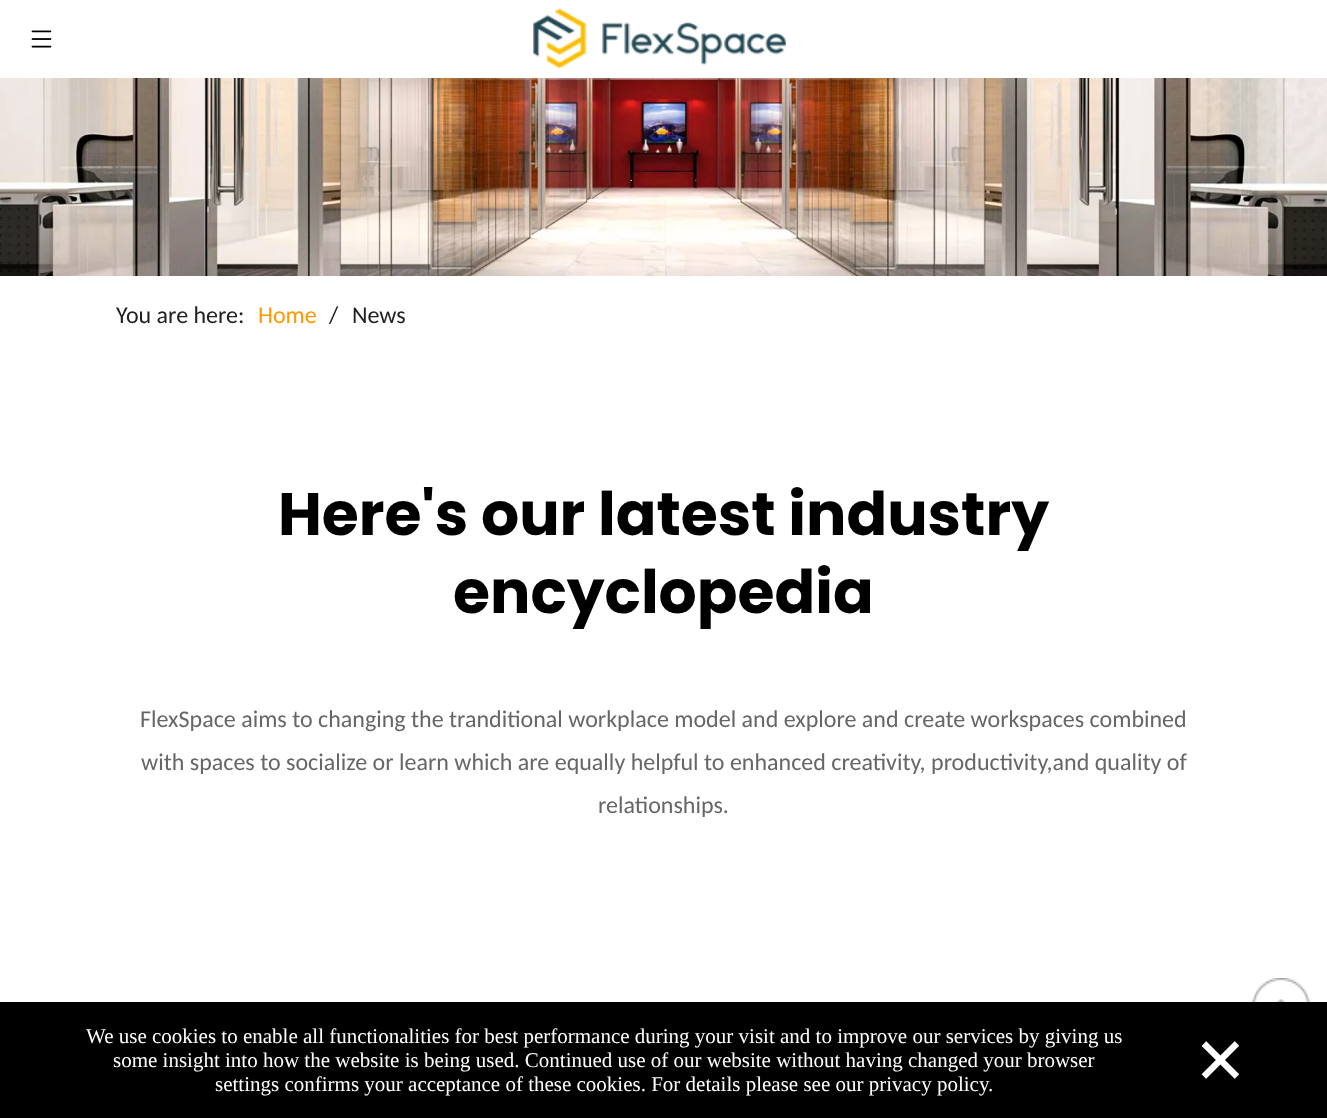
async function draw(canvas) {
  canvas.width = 1327;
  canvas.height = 1118;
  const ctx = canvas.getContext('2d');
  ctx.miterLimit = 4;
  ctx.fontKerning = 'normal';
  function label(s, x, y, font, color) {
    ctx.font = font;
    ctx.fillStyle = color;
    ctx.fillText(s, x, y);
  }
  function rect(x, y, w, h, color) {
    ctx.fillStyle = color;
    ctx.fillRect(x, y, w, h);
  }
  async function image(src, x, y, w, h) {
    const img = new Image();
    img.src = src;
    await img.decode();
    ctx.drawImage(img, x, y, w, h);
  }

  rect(0, 0, 1327, 1118, '#fff');
  await image('assets/img1.png', 31, 30, 21, 18);
  await image('assets/img2.png', 533, 8, 253, 61);
  await image('assets/img3.png', 0, 78, 1327, 198);
  label('You are here:', 116, 323, '24px Carlito', '#222');
  label('Home', 258, 323, '24px Carlito', '#f90');
  label('/', 329, 323, '24px Carlito', '#222');
  label('News', 352, 323, '24px Carlito', '#222');
  label('Here\'s our latest industry', 278, 535, 'bold 60px Poppins', '#000');
  label('encyclopedia', 453, 613, 'bold 60px Poppins', '#000');
  label('FlexSpace aims to changing the tranditional workplace model and explore and create workspaces combined', 140, 727, '24px Carlito', '#666');
  label('with spaces to socialize or learn which are equally helpful to enhanced creativity, productivity,and quality of', 141, 770, '24px Carlito', '#666');
  label('relationships.', 598, 813, '24px Carlito', '#666');
  await image('assets/img4.png', 1252, 978, 58, 24);
  rect(0, 1002, 1327, 116, '#000');
  label('We use cookies to enable all functionalities for best performance during your visit and to improve our services by giving us', 86, 1043, '21px Liberation Serif', '#fff');
  label('some insight into how the website is being used. Continued use of our website without having changed your browser', 113, 1067, '21px Liberation Serif', '#fff');
  label('settings confirms your acceptance of these cookies. For details please see our privacy policy.', 215, 1091, '21px Liberation Serif', '#fff');
  label('×', 1195, 1090, 'bold 90px Liberation Serif', '#fff');
}

draw(document.querySelector('canvas'));
